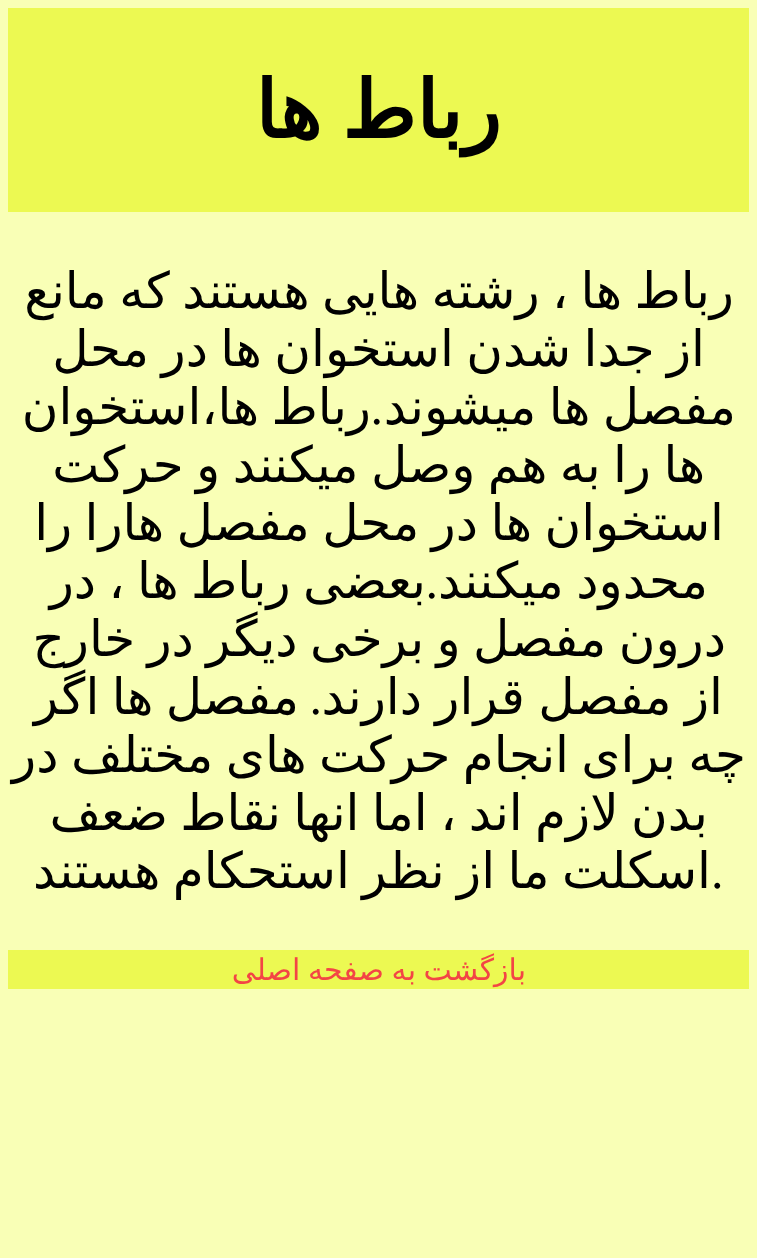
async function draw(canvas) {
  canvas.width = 757;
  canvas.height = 1258;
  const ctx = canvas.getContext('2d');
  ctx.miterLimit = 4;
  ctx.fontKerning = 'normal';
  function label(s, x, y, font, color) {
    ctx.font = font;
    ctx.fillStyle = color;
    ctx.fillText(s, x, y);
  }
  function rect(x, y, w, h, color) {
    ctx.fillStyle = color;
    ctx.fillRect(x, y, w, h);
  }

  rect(0, 0, 757, 1258, '#f9ffb6');
  rect(8, 8, 741, 204, '#ecf952');
  ctx.wordSpacing = '-5px';
  ctx.direction = 'rtl';
  label('رباط ها', 501, 138, 'bold 80px DejaVu Sans', '#000');
  ctx.wordSpacing = '-3.5px';
  label('رباط ها ، رشته هایی هستند که مانع', 734, 308, '50px DejaVu Sans', '#000');
  label('از جدا شدن استخوان ها در محل', 705, 366, '50px DejaVu Sans', '#000');
  label('مفصل ها میشوند', 736, 424, '50px DejaVu Sans', '#000');
  ctx.wordSpacing = '0px';
  label('.', 383, 424, '50px Liberation Serif', '#000');
  ctx.wordSpacing = '-3.5px';
  label('رباط ها،استخوان', 371, 424, '50px DejaVu Sans', '#000');
  label('ها را به هم وصل میکنند و حرکت', 705, 482, '50px DejaVu Sans', '#000');
  label('استخوان ها در محل مفصل هارا را', 724, 540, '50px DejaVu Sans', '#000');
  label('محدود میکنند', 708, 598, '50px DejaVu Sans', '#000');
  ctx.wordSpacing = '0px';
  label('.', 438, 598, '50px Liberation Serif', '#000');
  ctx.wordSpacing = '-3.5px';
  label('بعضی رباط ها ، در', 426, 598, '50px DejaVu Sans', '#000');
  label('درون مفصل و برخی دیگر در خارج', 726, 656, '50px DejaVu Sans', '#000');
  ctx.wordSpacing = '-2.5px';
  label('از مفصل قرار دارند', 723, 714, '50px DejaVu Sans', '#000');
  ctx.wordSpacing = '0px';
  label('.', 322, 714, '50px Liberation Serif', '#000');
  ctx.wordSpacing = '-3.5px';
  label('مفصل ها اگر', 299, 714, '50px DejaVu Sans', '#000');
  label('چه برای انجام حرکت های مختلف در', 746, 772, '50px DejaVu Sans', '#000');
  label('بدن لازم اند ، اما انها نقاط ضعف', 708, 830, '50px DejaVu Sans', '#000');
  ctx.wordSpacing = '0px';
  ctx.direction = 'ltr';
  label('.', 711, 888, '50px Liberation Serif', '#000');
  ctx.wordSpacing = '-3.5px';
  ctx.direction = 'rtl';
  label('اسکلت ما از نظر استحکام هستند', 711, 888, '50px DejaVu Sans', '#000');
  rect(8, 950, 741, 39, '#ecf952');
  ctx.wordSpacing = '-2px';
  label('بازگشت به صفحه اصلی', 526, 980, '30px DejaVu Sans', '#f34545');
}

draw(document.querySelector('canvas'));
